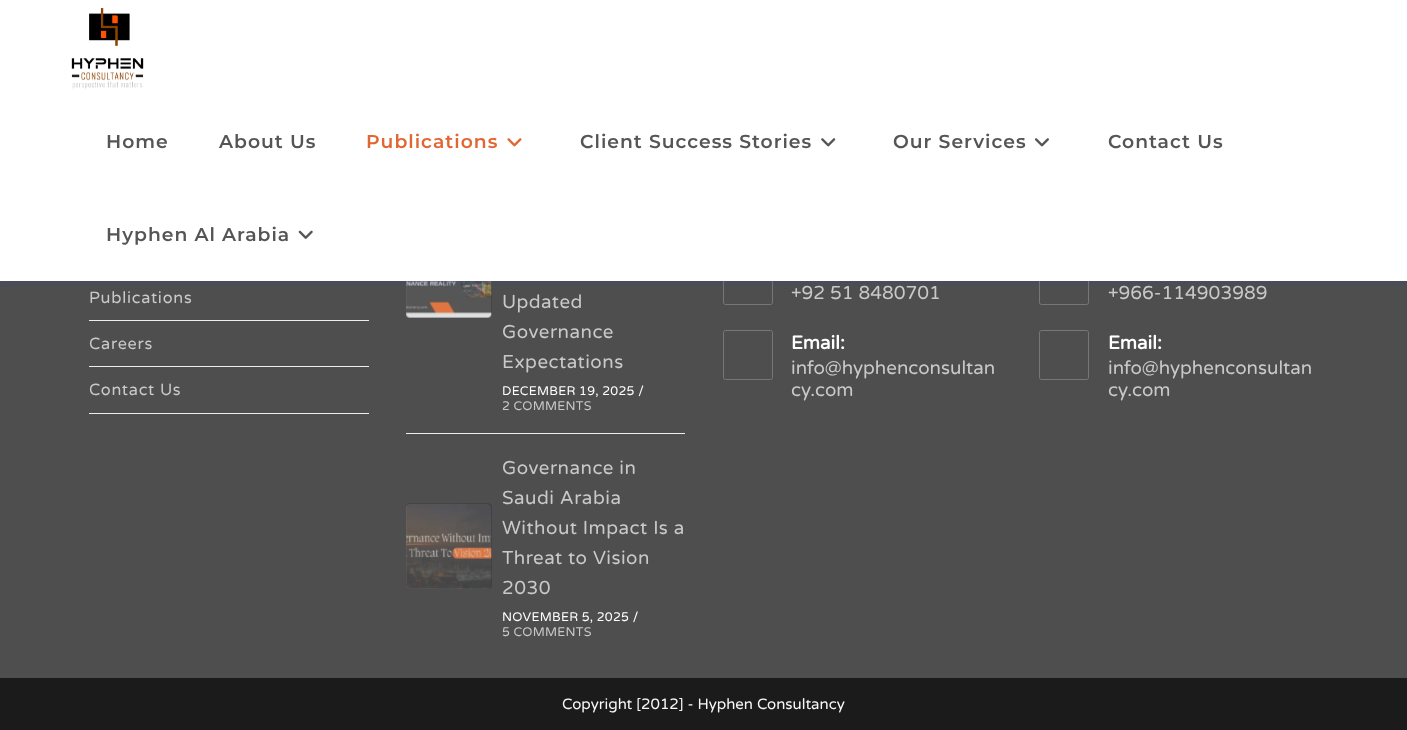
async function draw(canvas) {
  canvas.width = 1407;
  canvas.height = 730;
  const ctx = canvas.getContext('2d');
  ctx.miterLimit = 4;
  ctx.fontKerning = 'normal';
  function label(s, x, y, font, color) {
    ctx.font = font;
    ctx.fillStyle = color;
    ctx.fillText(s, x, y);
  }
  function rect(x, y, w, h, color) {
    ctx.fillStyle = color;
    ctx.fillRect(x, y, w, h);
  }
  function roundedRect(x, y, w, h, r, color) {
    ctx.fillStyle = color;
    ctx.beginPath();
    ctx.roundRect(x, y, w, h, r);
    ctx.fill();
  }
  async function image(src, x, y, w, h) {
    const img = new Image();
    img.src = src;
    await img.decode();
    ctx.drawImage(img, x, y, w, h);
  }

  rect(0, 0, 1407, 730, '#1b1b1b');
  rect(0, 281, 1407, 397, '#4e4e4e');
  await image('assets/img6.png', 406, 281, 86, 37);
  roundedRect(406, 233, 85, 85, 4, '#ffffff33');
  ctx.beginPath();
  ctx.roundRect(723.5, 255.5, 49, 49, 2);
  ctx.strokeStyle = '#777';
  ctx.stroke();
  ctx.beginPath();
  ctx.roundRect(1039.5, 255.5, 49, 49, 2);
  ctx.stroke();
  ctx.fillStyle = '#1b46c21a';
  ctx.filter = 'blur(2px)';
  ctx.beginPath();
  ctx.rect(0, 4, 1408, 281);
  ctx.fill();
  ctx.filter = 'none';
  rect(0, 0, 1407, 281, '#fff');
  await image('assets/img1.png', 71, 8, 73, 81);
  ctx.letterSpacing = '1px';
  label('Home', 106, 148, '600 18.75px Montserrat', '#555');
  label('About Us', 219, 148, '600 18.75px Montserrat', '#555');
  label('Publications', 366, 148, '600 18.75px Montserrat', '#e26633');
  await image('assets/img2.png', 507, 138, 15, 9);
  label('Client Success Stories', 580, 148, '600 18.75px Montserrat', '#555');
  await image('assets/img3.png', 821, 138, 15, 9);
  label('Our Services', 893, 148, '600 18.75px Montserrat', '#555');
  await image('assets/img4.png', 1034, 138, 15, 9);
  label('Contact Us', 1108, 148, '600 18.75px Montserrat', '#555');
  label('Hyphen Al Arabia', 106, 241, '600 18.75px Montserrat', '#555');
  await image('assets/img5.png', 298, 230, 15, 9);
  rect(89, 320, 280, 1, '#ededed');
  ctx.letterSpacing = '0.75px';
  label('Publications', 89, 303, '16.25px Varela Round', '#c9c9c9');
  rect(89, 366, 280, 1, '#ededed');
  label('Careers', 89, 349, '16.25px Varela Round', '#c9c9c9');
  rect(89, 413, 280, 1, '#ededed');
  label('Contact Us', 89, 395, '16.25px Varela Round', '#c9c9c9');
  ctx.letterSpacing = '0.5px';
  label('Updated', 502, 308, '18.75px Varela Round', '#c9c9c9');
  label('Governance', 502, 338, '18.75px Varela Round', '#c9c9c9');
  label('Expectations', 502, 368, '18.75px Varela Round', '#c9c9c9');
  ctx.letterSpacing = '0.25px';
  label('DECEMBER 19, 2025 /', 502, 395, '12.5px Varela Round', '#fff');
  label('2 COMMENTS', 502, 410, '12.5px Varela Round', '#c9c9c9');
  rect(406, 433, 279, 1, '#ededed');
  await image('assets/img7.png', 406, 503, 86, 86);
  roundedRect(406, 504, 85, 85, 4, '#ffffff33');
  ctx.letterSpacing = '0.5px';
  label('Governance in', 502, 474, '18.75px Varela Round', '#c9c9c9');
  label('Saudi Arabia', 502, 504, '18.75px Varela Round', '#c9c9c9');
  label('Without Impact Is a', 502, 534, '18.75px Varela Round', '#c9c9c9');
  label('Threat to Vision', 502, 564, '18.75px Varela Round', '#c9c9c9');
  label('2030', 502, 594, '18.75px Varela Round', '#c9c9c9');
  ctx.letterSpacing = '0.25px';
  label('NOVEMBER 5, 2025 /', 502, 621, '12.5px Varela Round', '#fff');
  label('5 COMMENTS', 502, 636, '12.5px Varela Round', '#c9c9c9');
  ctx.letterSpacing = '0px';
  label('+92 51 8480701', 791, 299, '18.75px Varela Round', '#c9c9c9');
  ctx.beginPath();
  ctx.roundRect(723.5, 330.5, 49, 49, 2);
  ctx.stroke();
  label('Email:', 791, 349, 'bold 18.75px Varela Round', '#fff');
  label('info@hyphenconsultan', 791, 374, '18.75px Varela Round', '#c9c9c9');
  label('cy.com', 791, 396, '18.75px Varela Round', '#c9c9c9');
  label('+966-114903989', 1108, 299, '18.75px Varela Round', '#c9c9c9');
  ctx.beginPath();
  ctx.roundRect(1039.5, 330.5, 49, 49, 2);
  ctx.stroke();
  label('Email:', 1108, 349, 'bold 18.75px Varela Round', '#fff');
  label('info@hyphenconsultan', 1108, 374, '18.75px Varela Round', '#c9c9c9');
  label('cy.com', 1108, 396, '18.75px Varela Round', '#c9c9c9');
  label('Copyright [2012] - Hyphen Consultancy', 562, 709, '15px Varela Round', '#f7f7f7');
}

draw(document.querySelector('canvas'));
